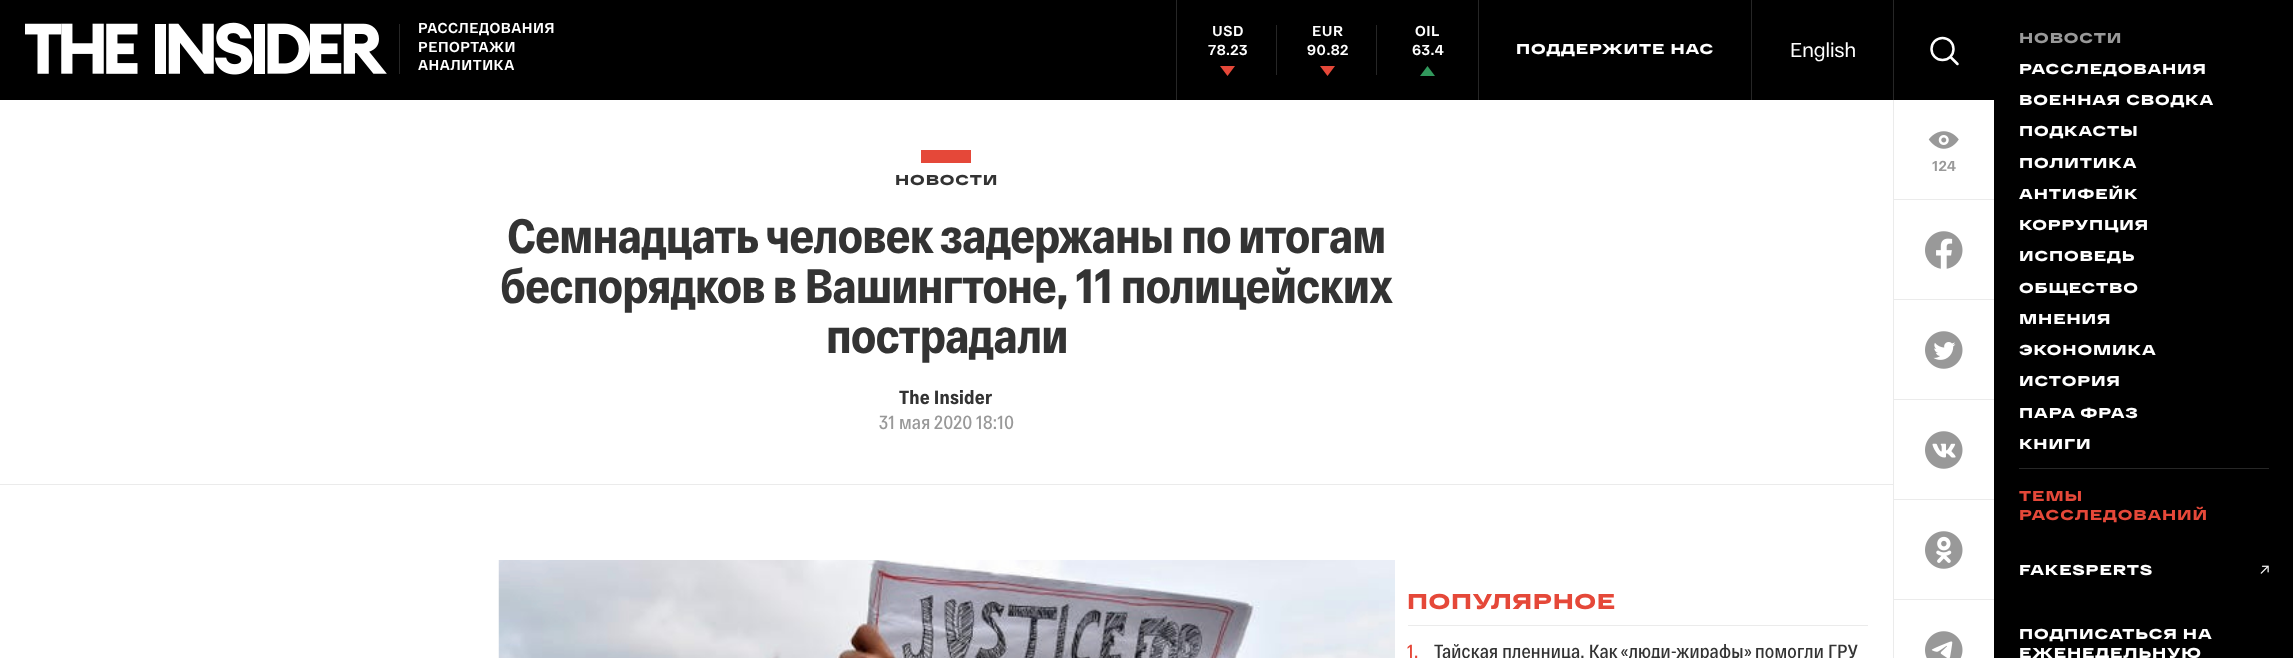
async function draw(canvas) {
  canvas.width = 2293;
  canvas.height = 658;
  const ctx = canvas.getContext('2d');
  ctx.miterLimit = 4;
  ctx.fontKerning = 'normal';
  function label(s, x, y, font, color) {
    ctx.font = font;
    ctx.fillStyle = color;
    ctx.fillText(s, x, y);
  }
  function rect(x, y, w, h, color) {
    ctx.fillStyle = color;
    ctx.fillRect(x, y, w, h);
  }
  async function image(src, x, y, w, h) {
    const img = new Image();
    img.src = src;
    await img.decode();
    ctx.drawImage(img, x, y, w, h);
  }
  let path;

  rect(0, 0, 2293, 658, '#fff');
  rect(0, 0, 1994, 100, '#000');
  await image('assets/img1.png', 25, 22, 362, 53);
  rect(399, 24, 1, 50, '#262626');
  ctx.letterSpacing = '0.5px';
  label('РАССЛЕДОВАНИЯ', 418, 33, '14.4px "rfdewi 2"', '#fff');
  label('РЕПОРТАЖИ', 418, 52, '14.4px "rfdewi 2"', '#fff');
  label('АНАЛИТИКА', 418, 70, '14.4px "rfdewi 2"', '#fff');
  rect(1176, 0, 1, 100, '#262626');
  label('USD', 1212, 36, '14.4px "rfdewi 2"', '#fff');
  rect(1276, 25, 1, 50, '#262626');
  label('78.23', 1208, 55, '14.4px "rfdewi 2"', '#fff');
  ctx.fillStyle = '#e54839';
  path = new Path2D('M1220 66H1235L1227.5 76Z');
  ctx.fill(path);
  label('EUR', 1312, 36, '14.4px "rfdewi 2"', '#fff');
  rect(1376, 25, 1, 50, '#262626');
  label('90.82', 1307, 55, '14.4px "rfdewi 2"', '#fff');
  ctx.fillStyle = '#e54839';
  path = new Path2D('M1320 66H1335L1327.5 76Z');
  ctx.fill(path);
  label('OIL', 1415, 36, '14.4px "rfdewi 2"', '#fff');
  label('63.4', 1412, 55, '14.4px "rfdewi 2"', '#fff');
  ctx.fillStyle = '#31985c';
  path = new Path2D('M1435 76H1420L1427.5 66Z');
  ctx.fill(path);
  rect(1478, 0, 1, 100, '#262626');
  ctx.letterSpacing = '0.9px';
  label('ПОДДЕРЖИТЕ НАС', 1516, 54, '14.4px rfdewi', '#fff');
  rect(1751, 0, 1, 100, '#262626');
  ctx.letterSpacing = '0px';
  label('English', 1790, 57, '20px "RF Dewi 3"', '#fff');
  rect(1893, 0, 1, 100, '#262626');
  ctx.beginPath();
  ctx.arc(1942.5, 49, 11, 0, 2 * Math.PI);
  ctx.strokeStyle = '#fff';
  ctx.lineWidth = 2.5;
  ctx.stroke();
  path = new Path2D('M1951 57.5L1957.5 64');
  ctx.lineCap = 'round';
  ctx.stroke(path);
  rect(1894, 199, 100, 1, '#ebebeb');
  await image('assets/img2.png', 1928, 131, 31, 18);
  ctx.letterSpacing = '0.5px';
  label('124', 1932, 171, '14.4px "rfdewi 2"', '#999');
  rect(1894, 299, 100, 1, '#ebebeb');
  await image('assets/img3.png', 1925, 231, 38, 38);
  rect(1894, 399, 100, 1, '#ebebeb');
  await image('assets/img4.png', 1925, 331, 38, 38);
  rect(1894, 499, 100, 1, '#ebebeb');
  await image('assets/img5.png', 1925, 431, 38, 38);
  rect(1894, 599, 100, 1, '#ebebeb');
  await image('assets/img6.png', 1925, 531, 38, 38);
  await image('assets/img7.png', 1925, 631, 38, 27);
  rect(1893, 100, 1, 558, '#ebebeb');
  rect(0, 484, 1894, 1, '#ebebeb');
  rect(921, 150, 50, 13, '#e54839');
  ctx.letterSpacing = '0.9px';
  label('НОВОСТИ', 895, 185, '14.4px rfdewi', '#333');
  ctx.letterSpacing = '-0.95px';
  label('Семнадцать человек задержаны по итогам', 507, 253, '800 48.1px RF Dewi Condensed', '#333');
  label('беспорядков в Вашингтоне, 11 полицейских', 500, 303, '800 48.1px RF Dewi Condensed', '#333');
  label('пострадали', 826, 353, '800 48.1px RF Dewi Condensed', '#333');
  ctx.letterSpacing = '0.2px';
  label('The Insider', 899, 404, '800 19.1px RF Dewi Condensed', '#333');
  label('31 мая 2020 18:10', 879, 429, '600 19.1px RF Dewi Condensed', '#999');
  await image('assets/img8.png', 498, 560, 897, 98);
  ctx.letterSpacing = '0.6px';
  label('ПОПУЛЯРНОЕ', 1407, 609, '21.4px rfdewi', '#e54839');
  rect(1408, 625, 460, 1, '#ebebeb');
  ctx.letterSpacing = '0.2px';
  label('1.', 1407, 658, '600 19.1px RF Dewi Condensed', '#e54839');
  label('Тайская пленница. Как «люди-жирафы» помогли ГРУ', 1434, 658, '600 19.1px RF Dewi Condensed', '#333');
  rect(1994, 0, 299, 658, '#000');
  ctx.letterSpacing = '0.9px';
  label('НОВОСТИ', 2019, 43, '14.4px rfdewi', '#999');
  label('РАССЛЕДОВАНИЯ', 2019, 74, '14.4px rfdewi', '#fff');
  label('ВОЕННАЯ СВОДКА', 2019, 105, '14.4px rfdewi', '#fff');
  label('ПОДКАСТЫ', 2019, 136, '14.4px rfdewi', '#fff');
  label('ПОЛИТИКА', 2019, 168, '14.4px rfdewi', '#fff');
  label('АНТИФЕЙК', 2019, 199, '14.4px rfdewi', '#fff');
  label('КОРРУПЦИЯ', 2019, 230, '14.4px rfdewi', '#fff');
  label('ИСПОВЕДЬ', 2019, 261, '14.4px rfdewi', '#fff');
  label('ОБЩЕСТВО', 2019, 293, '14.4px rfdewi', '#fff');
  label('МНЕНИЯ', 2019, 324, '14.4px rfdewi', '#fff');
  label('ЭКОНОМИКА', 2019, 355, '14.4px rfdewi', '#fff');
  label('ИСТОРИЯ', 2019, 386, '14.4px rfdewi', '#fff');
  label('ПАРА ФРАЗ', 2019, 418, '14.4px rfdewi', '#fff');
  label('КНИГИ', 2019, 449, '14.4px rfdewi', '#fff');
  rect(2019, 468, 250, 1, '#262626');
  label('ТЕМЫ', 2019, 501, '14.4px rfdewi', '#e54839');
  label('РАССЛЕДОВАНИЙ', 2019, 520, '14.4px rfdewi', '#e54839');
  label('FAKESPERTS', 2019, 575, '14.4px rfdewi', '#fff');
  await image('assets/img9.png', 2260, 565, 9, 9);
  label('ПОДПИСАТЬСЯ НА', 2019, 639, '14.4px rfdewi', '#fff');
  label('ЕЖЕНЕДЕЛЬНУЮ', 2019, 658, '14.4px rfdewi', '#fff');
}

draw(document.querySelector('canvas'));
